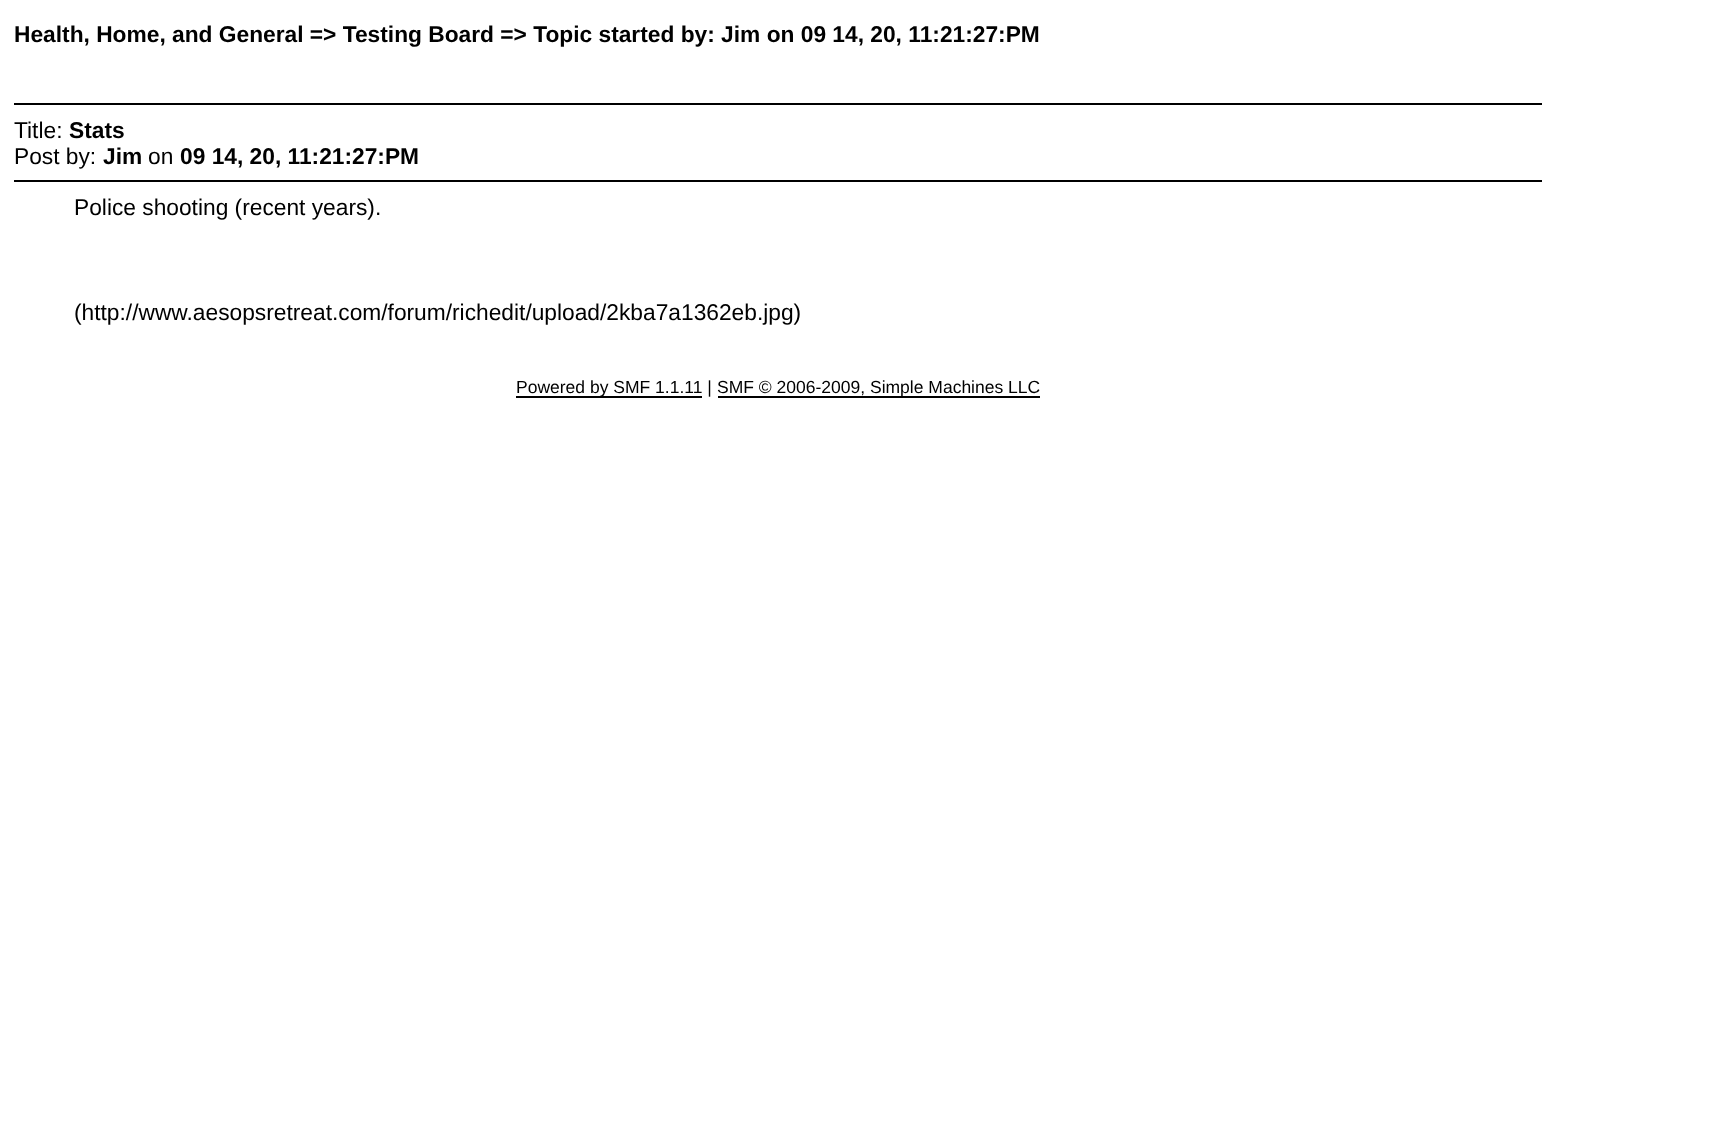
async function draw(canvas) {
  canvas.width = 1724;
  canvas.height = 1130;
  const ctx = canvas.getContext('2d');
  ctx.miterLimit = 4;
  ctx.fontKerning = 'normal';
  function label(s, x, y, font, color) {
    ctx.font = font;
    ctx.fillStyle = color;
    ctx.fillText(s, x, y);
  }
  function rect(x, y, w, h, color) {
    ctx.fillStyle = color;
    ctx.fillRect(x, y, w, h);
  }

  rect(0, 0, 1724, 1130, '#fff');
  label('Health, Home, and General => Testing Board => Topic started by: Jim on 09 14, 20, 11:21:27:PM', 14, 42, 'bold 22.75px Liberation Sans', '#000');
  rect(14, 103, 1528, 2, '#000');
  label('Title:', 14, 138, '22.75px Liberation Sans', '#000');
  label('Stats', 69, 138, 'bold 22.75px Liberation Sans', '#000');
  label('Post by:', 14, 164, '22.75px Liberation Sans', '#000');
  label('Jim', 103, 164, 'bold 22.75px Liberation Sans', '#000');
  label('on', 148, 164, '22.75px Liberation Sans', '#000');
  label('09 14, 20, 11:21:27:PM', 180, 164, 'bold 22.75px Liberation Sans', '#000');
  rect(14, 180, 1528, 2, '#000');
  label('Police shooting (recent years).', 74, 215, '22.75px Liberation Sans', '#000');
  label('(http://www.aesopsretreat.com/forum/richedit/upload/2kba7a1362eb.jpg)', 74, 320, '22.75px Liberation Sans', '#000');
  rect(516, 396, 186, 2, '#000');
  label('Powered by SMF 1.1.11 |', 516, 393, '17.5px Liberation Sans', '#000');
  rect(718, 396, 322, 2, '#000');
  label('SMF © 2006-2009, Simple Machines LLC', 717, 393, '17.5px Liberation Sans', '#000');
}

draw(document.querySelector('canvas'));
